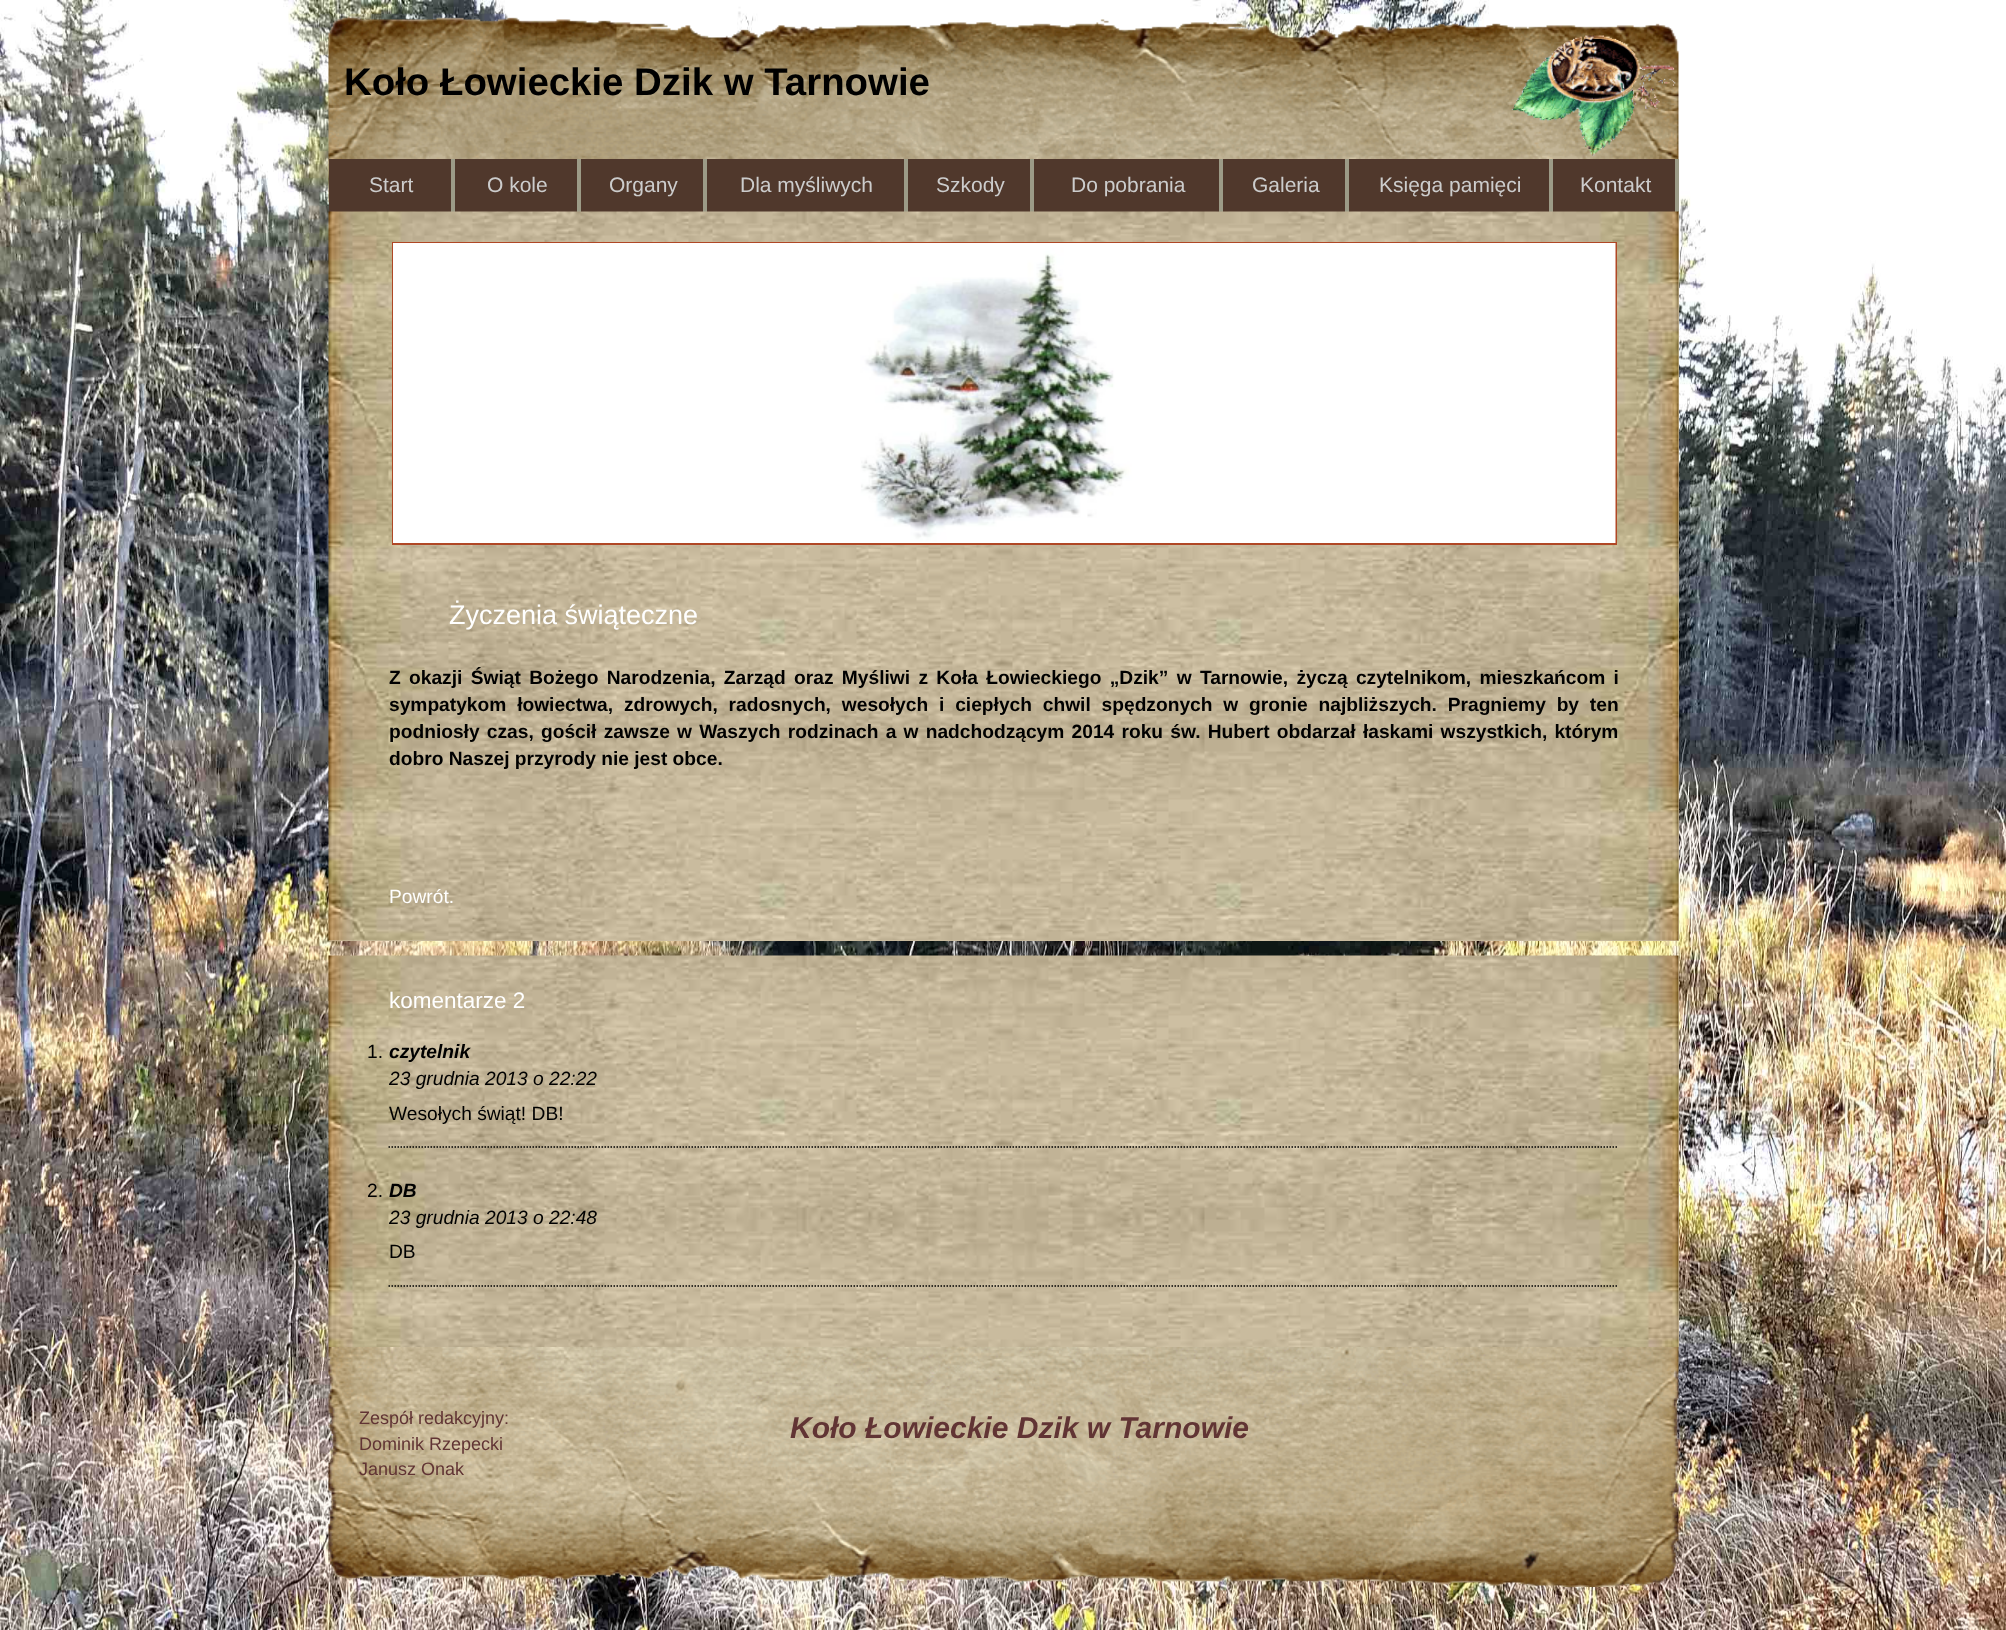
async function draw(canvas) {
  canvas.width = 2006;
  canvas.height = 1630;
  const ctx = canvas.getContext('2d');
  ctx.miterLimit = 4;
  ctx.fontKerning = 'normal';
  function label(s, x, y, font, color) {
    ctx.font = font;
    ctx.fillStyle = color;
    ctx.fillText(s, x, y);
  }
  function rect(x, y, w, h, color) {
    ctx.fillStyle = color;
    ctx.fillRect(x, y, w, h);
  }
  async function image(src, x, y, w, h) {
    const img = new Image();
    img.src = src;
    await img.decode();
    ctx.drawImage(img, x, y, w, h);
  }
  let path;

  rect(0, 0, 2006, 1630, '#fff');
  await image('assets/img1.png', 0, 0, 2006, 1630);
  await image('assets/img2.png', 328, 16, 1351, 187);
  label('Koło Łowieckie Dzik w Tarnowie', 344, 95, 'bold 38.4px Liberation Sans', '#000');
  await image('assets/img3.png', 1511, 35, 165, 121);
  rect(329, 159, 1346, 53, '#50382c');
  rect(451, 159, 4, 53, '#9c9b87');
  label('Start', 369, 192, '21px Liberation Sans', '#ccc');
  rect(577, 159, 4, 53, '#9c9b87');
  label('O kole', 487, 192, '21px Liberation Sans', '#ccc');
  rect(703, 159, 4, 53, '#9c9b87');
  label('Organy', 609, 192, '21px Liberation Sans', '#ccc');
  rect(904, 159, 4, 53, '#9c9b87');
  label('Dla myśliwych', 740, 192, '21px Liberation Sans', '#ccc');
  rect(1030, 159, 4, 53, '#9c9b87');
  label('Szkody', 936, 192, '21px Liberation Sans', '#ccc');
  rect(1219, 159, 4, 53, '#9c9b87');
  label('Do pobrania', 1071, 192, '21px Liberation Sans', '#ccc');
  rect(1345, 159, 4, 53, '#9c9b87');
  label('Galeria', 1252, 192, '21px Liberation Sans', '#ccc');
  rect(1549, 159, 4, 53, '#9c9b87');
  label('Księga pamięci', 1379, 192, '21px Liberation Sans', '#ccc');
  rect(1675, 159, 4, 53, '#9c9b87');
  label('Kontakt', 1580, 192, '21px Liberation Sans', '#ccc');
  rect(329, 212, 1350, 729, '#cfc1a4');
  await image('assets/img4.png', 328, 211, 1351, 730);
  ctx.strokeStyle = '#b04725';
  ctx.lineWidth = 2;
  ctx.strokeRect(393, 243, 1223, 301);
  await image('assets/img5.png', 393, 243, 1223, 300);
  label('Życzenia świąteczne', 449, 624, '27px Liberation Sans', '#fff');
  ctx.wordSpacing = '3px';
  label('Z okazji Świąt Bożego Narodzenia, Zarząd oraz Myśliwi z Koła Łowieckiego „Dzik” w Tarnowie, życzą czytelnikom, mieszkańcom i', 389, 684, 'bold 19.2px Liberation Sans', '#000');
  ctx.wordSpacing = '5.5px';
  label('sympatykom łowiectwa, zdrowych, radosnych, wesołych i ciepłych chwil spędzonych w gronie najbliższych. Pragniemy by ten', 389, 711, 'bold 19.2px Liberation Sans', '#000');
  ctx.wordSpacing = '1.9px';
  label('podniosły czas, gościł zawsze w Waszych rodzinach a w nadchodzącym 2014 roku św. Hubert obdarzał łaskami wszystkich, którym', 389, 738, 'bold 19.2px Liberation Sans', '#000');
  ctx.wordSpacing = '0px';
  label('dobro Naszej przyrody nie jest obce.', 389, 765, 'bold 19.2px Liberation Sans', '#000');
  label('Powrót.', 389, 903, '19.2px Liberation Sans', '#fff');
  rect(1678, 956, 1, 391, '#cfc1a4');
  await image('assets/img6.png', 328, 955, 1351, 392);
  label('komentarze 2', 389, 1008, '22.5px Liberation Sans', '#fff');
  label('1.', 367, 1058, '19.2px Liberation Sans', '#000');
  path = new Path2D('M388.5 1147H1618.5');
  ctx.strokeStyle = '#000';
  ctx.lineWidth = 1.5;
  ctx.setLineDash([1.5, 1.5]);
  ctx.stroke(path);
  label('czytelnik', 389, 1058, 'italic bold 19.2px Liberation Sans', '#000');
  label('23 grudnia 2013 o 22:22', 389, 1085, 'italic 19.2px Liberation Sans', '#000');
  label('Wesołych świąt! DB!', 389, 1120, '19.2px Liberation Sans', '#000');
  label('2.', 367, 1197, '19.2px Liberation Sans', '#000');
  path = new Path2D('M388.5 1286H1618.5');
  ctx.stroke(path);
  label('DB', 389, 1197, 'italic bold 19.2px Liberation Sans', '#000');
  label('23 grudnia 2013 o 22:48', 389, 1224, 'italic 19.2px Liberation Sans', '#000');
  label('DB', 389, 1258, '19.2px Liberation Sans', '#000');
  await image('assets/img7.png', 328, 1347, 1351, 240);
  label('Zespół redakcyjny:', 359, 1424, '18px Liberation Sans', '#613434');
  label('Dominik Rzepecki', 359, 1450, '18px Liberation Sans', '#613434');
  label('Janusz Onak', 359, 1475, '18px Liberation Sans', '#613434');
  label('Koło Łowieckie Dzik w Tarnowie', 790, 1438, 'italic bold 30px Liberation Sans', '#613434');
}

draw(document.querySelector('canvas'));
